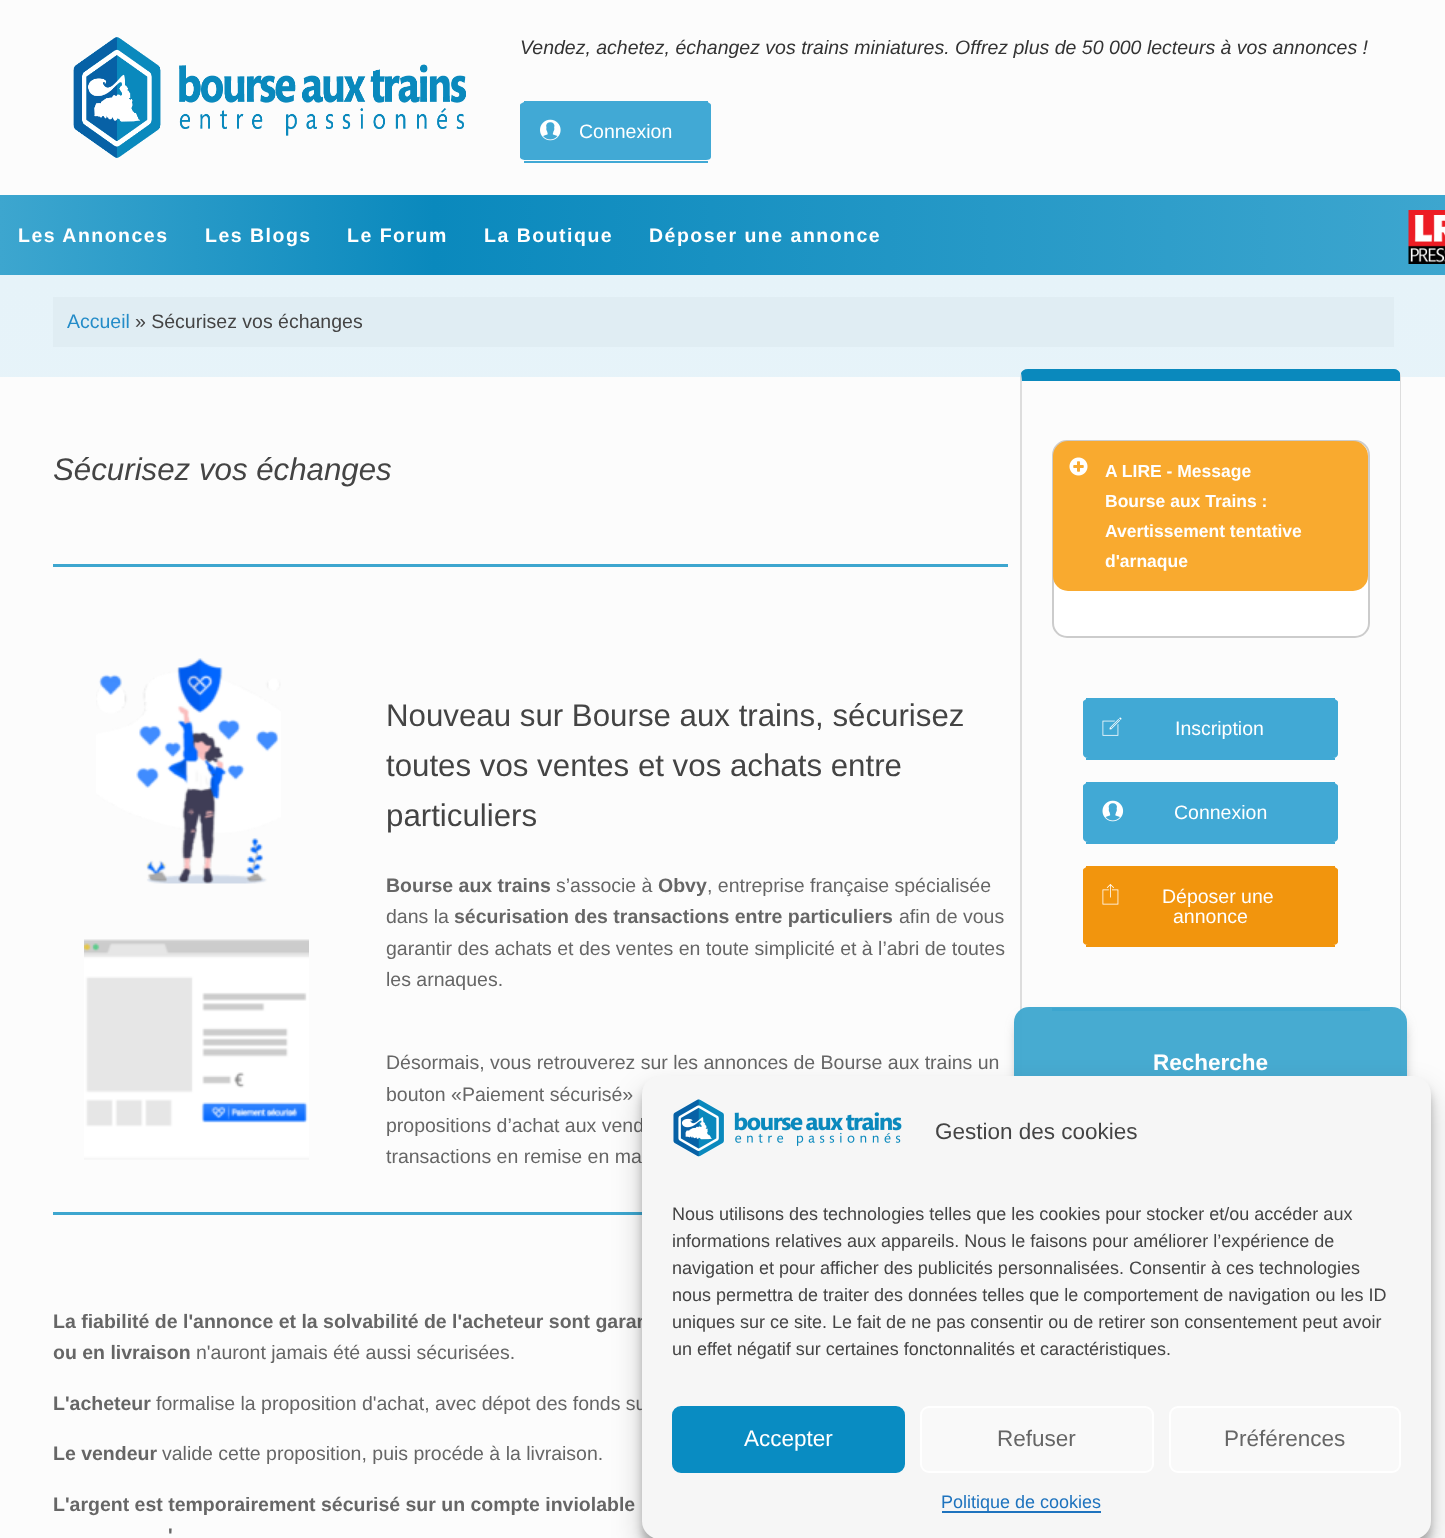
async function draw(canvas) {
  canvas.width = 1445;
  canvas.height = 1538;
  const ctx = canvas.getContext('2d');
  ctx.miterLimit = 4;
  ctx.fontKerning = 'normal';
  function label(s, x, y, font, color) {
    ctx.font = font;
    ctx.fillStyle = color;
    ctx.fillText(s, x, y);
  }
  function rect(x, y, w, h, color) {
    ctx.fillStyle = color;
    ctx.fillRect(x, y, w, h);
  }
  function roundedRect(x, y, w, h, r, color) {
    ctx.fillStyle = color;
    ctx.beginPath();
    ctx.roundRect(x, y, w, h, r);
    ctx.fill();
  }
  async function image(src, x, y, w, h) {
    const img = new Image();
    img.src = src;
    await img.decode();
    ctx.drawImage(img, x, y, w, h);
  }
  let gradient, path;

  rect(0, 0, 1445, 1538, '#fcfcfc');
  await image('assets/img1.png', 73, 37, 393, 121);
  label('Vendez, achetez, échangez vos trains miniatures. Offrez plus de 50 000 lecteurs à vos annonces !', 520, 54, 'italic 19.5px Liberation Sans', '#333');
  ctx.fillStyle = '#41a9d5';
  path = new Path2D('M525 102H706C709 102 711 104 711 105V157C711 159 709 160 706 160H525C523 160 520 159 520 157V105C520 104 523 102 525 102Z');
  ctx.fill(path);
  rect(524, 101, 184, 2, '#41a9d5');
  rect(524, 161, 184, 2, '#41a9d5');
  await image('assets/img2.png', 540, 119, 21, 22);
  label('Connexion', 579, 138, '19.5px Liberation Sans', '#fff');
  gradient = ctx.createLinearGradient(0, 235, 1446, 235);
  gradient.addColorStop(0, '#3da6cf');
  gradient.addColorStop(0.3, '#0a89bd');
  gradient.addColorStop(1, '#3da6cf');
  ctx.fillStyle = gradient;
  ctx.fillRect(0, 195, 1445, 80);
  ctx.letterSpacing = '1.5px';
  label('Les Annonces', 18, 242, 'bold 19.5px Liberation Sans', '#fff');
  label('Les Blogs', 205, 242, 'bold 19.5px Liberation Sans', '#fff');
  label('Le Forum', 347, 242, 'bold 19.5px Liberation Sans', '#fff');
  label('La Boutique', 484, 242, 'bold 19.5px Liberation Sans', '#fff');
  label('Déposer une annonce', 649, 242, 'bold 19.5px Liberation Sans', '#fff');
  await image('assets/img3.png', 1408, 210, 37, 54);
  gradient = ctx.createLinearGradient(723, 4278, 723, 275);
  gradient.addColorStop(0, '#fcfcfc');
  gradient.addColorStop(1, '#e6f3f9');
  ctx.fillStyle = gradient;
  ctx.fillRect(0, 275, 1445, 102);
  rect(53, 297, 1341, 50, '#e0edf3');
  ctx.letterSpacing = '0px';
  label('Accueil', 67, 328, '19.5px Liberation Sans', '#248cc8');
  label('» Sécurisez vos échanges', 135, 328, '19.5px Liberation Sans', '#444');
  label('Sécurisez vos échanges', 53, 480, 'italic 31.25px Liberation Sans', '#444');
  rect(53, 564, 955, 3, '#3da6cf');
  await image('assets/img4.png', 96, 658, 185, 226);
  await image('assets/img5.png', 84, 939, 225, 221);
  label('Nouveau sur Bourse aux trains, sécurisez', 386, 726, '31.25px Liberation Sans', '#444');
  label('toutes vos ventes et vos achats entre', 386, 776, '31.25px Liberation Sans', '#444');
  label('particuliers', 386, 826, '31.25px Liberation Sans', '#444');
  label('Bourse aux trains', 386, 892, 'bold 19.5px Liberation Sans', '#666');
  label('s’associe à', 556, 892, '19.5px Liberation Sans', '#666');
  label('Obvy', 658, 892, 'bold 19.5px Liberation Sans', '#666');
  label(', entreprise française spécialisée', 707, 892, '19.5px Liberation Sans', '#666');
  label('dans la', 386, 923, '19.5px Liberation Sans', '#666');
  label('sécurisation des transactions entre particuliers', 454, 923, 'bold 19.5px Liberation Sans', '#666');
  label('afin de vous', 899, 923, '19.5px Liberation Sans', '#666');
  label('garantir des achats et des ventes en toute simplicité et à l’abri de toutes', 386, 955, '19.5px Liberation Sans', '#666');
  label('les arnaques.', 386, 986, '19.5px Liberation Sans', '#666');
  label('Désormais, vous retrouverez sur les annonces de Bourse aux trains un', 386, 1069, '19.5px Liberation Sans', '#666');
  label('bouton «Paiement sécurisé»', 386, 1101, '19.5px Liberation Sans', '#666');
  label('propositions d’achat aux vend', 386, 1132, '19.5px Liberation Sans', '#666');
  label('transactions en remise en ma', 386, 1163, '19.5px Liberation Sans', '#666');
  rect(53, 1212, 589, 3, '#3da6cf');
  label('La fiabilité de l\'annonce et la solvabilité de l\'acheteur sont garan', 53, 1328, 'bold 19.5px Liberation Sans', '#666');
  label('ou en livraison', 53, 1359, 'bold 19.5px Liberation Sans', '#666');
  label('n\'auront jamais été aussi sécurisées.', 196, 1359, '19.5px Liberation Sans', '#666');
  label('L\'acheteur', 53, 1410, 'bold 19.5px Liberation Sans', '#666');
  label('formalise la proposition d\'achat, avec dépot des fonds su', 156, 1410, '19.5px Liberation Sans', '#666');
  label('Le vendeur', 53, 1460, 'bold 19.5px Liberation Sans', '#666');
  label('valide cette proposition, puis procéde à la livraison.', 162, 1460, '19.5px Liberation Sans', '#666');
  label('L\'argent est temporairement sécurisé sur un compte inviolable', 53, 1511, 'bold 19.5px Liberation Sans', '#666');
  label('\'', 168, 1542, 'bold 19.5px Liberation Sans', '#666');
  ctx.fillStyle = '#0a89bd';
  path = new Path2D('M1028 369C1024 369 1022 371 1021 373L1022 385V381H1400V373C1399 371 1397 369 1394 369Z');
  ctx.fill(path);
  ctx.fillStyle = '#ddd';
  path = new Path2D('M1401 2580V376L1400 373V381V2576V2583Z');
  ctx.fill(path);
  path = new Path2D('M1020 376V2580L1021 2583L1022 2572V385L1021 373Z');
  ctx.fill(path);
  ctx.fillStyle = '#fff';
  ctx.beginPath();
  ctx.roundRect(1053, 441, 316, 196, 14);
  ctx.fill();
  ctx.strokeStyle = '#ccc';
  ctx.lineWidth = 2;
  ctx.stroke();
  roundedRect(1053, 441, 315, 150, 15, '#f9aa2f');
  await image('assets/img6.png', 1069, 457, 19, 19);
  label('A LIRE - Message', 1105, 477, 'bold 17.5px Liberation Sans', '#fff');
  label('Bourse aux Trains :', 1105, 507, 'bold 17.5px Liberation Sans', '#fff');
  label('Avertissement tentative', 1105, 537, 'bold 17.5px Liberation Sans', '#fff');
  label('d\'arnaque', 1105, 567, 'bold 17.5px Liberation Sans', '#fff');
  ctx.fillStyle = '#41a9d5';
  path = new Path2D('M1088 699H1333C1336 699 1338 701 1338 702V754C1338 756 1336 758 1333 758H1088C1085 758 1083 756 1083 754V702C1083 701 1085 699 1088 699Z');
  ctx.fill(path);
  rect(1086, 698, 249, 2, '#41a9d5');
  rect(1086, 758, 249, 2, '#41a9d5');
  await image('assets/img7.png', 1102, 717, 20, 19);
  label('Inscription', 1175, 735, '19.5px Liberation Sans', '#fff');
  ctx.fillStyle = '#41a9d5';
  path = new Path2D('M1088 783H1333C1336 783 1338 785 1338 786V838C1338 840 1336 842 1333 842H1088C1085 842 1083 840 1083 838V786C1083 785 1085 783 1088 783Z');
  ctx.fill(path);
  rect(1086, 782, 249, 2, '#41a9d5');
  rect(1086, 842, 249, 2, '#41a9d5');
  await image('assets/img8.png', 1102, 800, 22, 22);
  label('Connexion', 1174, 819, '19.5px Liberation Sans', '#fff');
  ctx.fillStyle = '#f2950d';
  path = new Path2D('M1088 867H1333C1336 867 1338 869 1338 870V942C1338 943 1336 945 1333 945H1088C1085 945 1083 943 1083 942V870C1083 869 1085 867 1088 867Z');
  ctx.fill(path);
  rect(1086, 866, 249, 2, '#f2950d');
  rect(1086, 945, 249, 2, '#f2950d');
  await image('assets/img9.png', 1102, 884, 17, 21);
  label('Déposer une', 1162, 903, '19.5px Liberation Sans', '#fff');
  label('annonce', 1173, 923, '19.5px Liberation Sans', '#fff');
  ctx.save();
  path = new Path2D('M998 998H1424V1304H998ZM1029 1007H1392C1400.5 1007 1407 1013.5 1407 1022V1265C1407 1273.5 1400.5 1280 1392 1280H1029C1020.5 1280 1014 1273.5 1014 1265V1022C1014 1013.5 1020.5 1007 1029 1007Z');
  ctx.clip(path, 'evenodd');
  ctx.fillStyle = '#666';
  ctx.filter = 'blur(7.5px)';
  ctx.beginPath();
  ctx.roundRect(1022, 1022, 378, 258, 8);
  ctx.fill();
  ctx.filter = 'none';
  ctx.restore();
  roundedRect(1014, 1007, 393, 273, 15, '#3da6cff2');
  rect(1052, 1008, 318, 3, '#3da6cf');
  label('Recherche', 1153, 1070, 'bold 22.5px Liberation Sans', '#fff');
  ctx.fillStyle = '#0000003b';
  ctx.filter = 'blur(4.5px)';
  ctx.beginPath();
  ctx.roundRect(642, 1085, 789, 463, 18);
  ctx.fill();
  ctx.filter = 'none';
  ctx.fillStyle = '#00000030';
  ctx.filter = 'blur(15px)';
  ctx.beginPath();
  ctx.roundRect(642, 1091, 789, 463, 18);
  ctx.fill();
  ctx.filter = 'none';
  roundedRect(642, 1076, 789, 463, 18, '#f6f6f6');
  await image('assets/img10.png', 673, 1099, 229, 58);
  label('Gestion des cookies', 935, 1139, '22.5px Liberation Sans', '#444');
  label('Nous utilisons des technologies telles que les cookies pour stocker et/ou accéder aux', 672, 1220, '18px Liberation Sans', '#444');
  label('informations relatives aux appareils. Nous le faisons pour améliorer l’expérience de', 672, 1247, '18px Liberation Sans', '#444');
  label('navigation et pour afficher des publicités personnalisées. Consentir à ces technologies', 672, 1274, '18px Liberation Sans', '#444');
  label('nous permettra de traiter des données telles que le comportement de navigation ou les ID', 672, 1301, '18px Liberation Sans', '#444');
  label('uniques sur ce site. Le fait de ne pas consentir ou de retirer son consentement peut avoir', 672, 1328, '18px Liberation Sans', '#444');
  label('un effet négatif sur certaines fonctonnalités et caractéristiques.', 672, 1355, '18px Liberation Sans', '#444');
  ctx.fillStyle = '#098cc2';
  ctx.beginPath();
  ctx.roundRect(673, 1407, 231, 65, 8);
  ctx.fill();
  ctx.strokeStyle = '#098cc2';
  ctx.stroke();
  label('Accepter', 744, 1446, '22.5px Liberation Sans', '#fff');
  ctx.fillStyle = '#f9f9f9';
  ctx.beginPath();
  ctx.roundRect(921, 1407, 232, 65, 8);
  ctx.fill();
  ctx.strokeStyle = '#fff';
  ctx.stroke();
  label('Refuser', 997, 1446, '22.5px Liberation Sans', '#666');
  ctx.fillStyle = '#f9f9f9';
  ctx.beginPath();
  ctx.roundRect(1170, 1407, 230, 65, 8);
  ctx.fill();
  ctx.stroke();
  label('Préférences', 1224, 1446, '22.5px Liberation Sans', '#666');
  rect(942, 1511, 159, 2, '#1e73be');
  label('Politique de cookies', 941, 1508, '18px Liberation Sans', '#1e73be');
}

draw(document.querySelector('canvas'));
